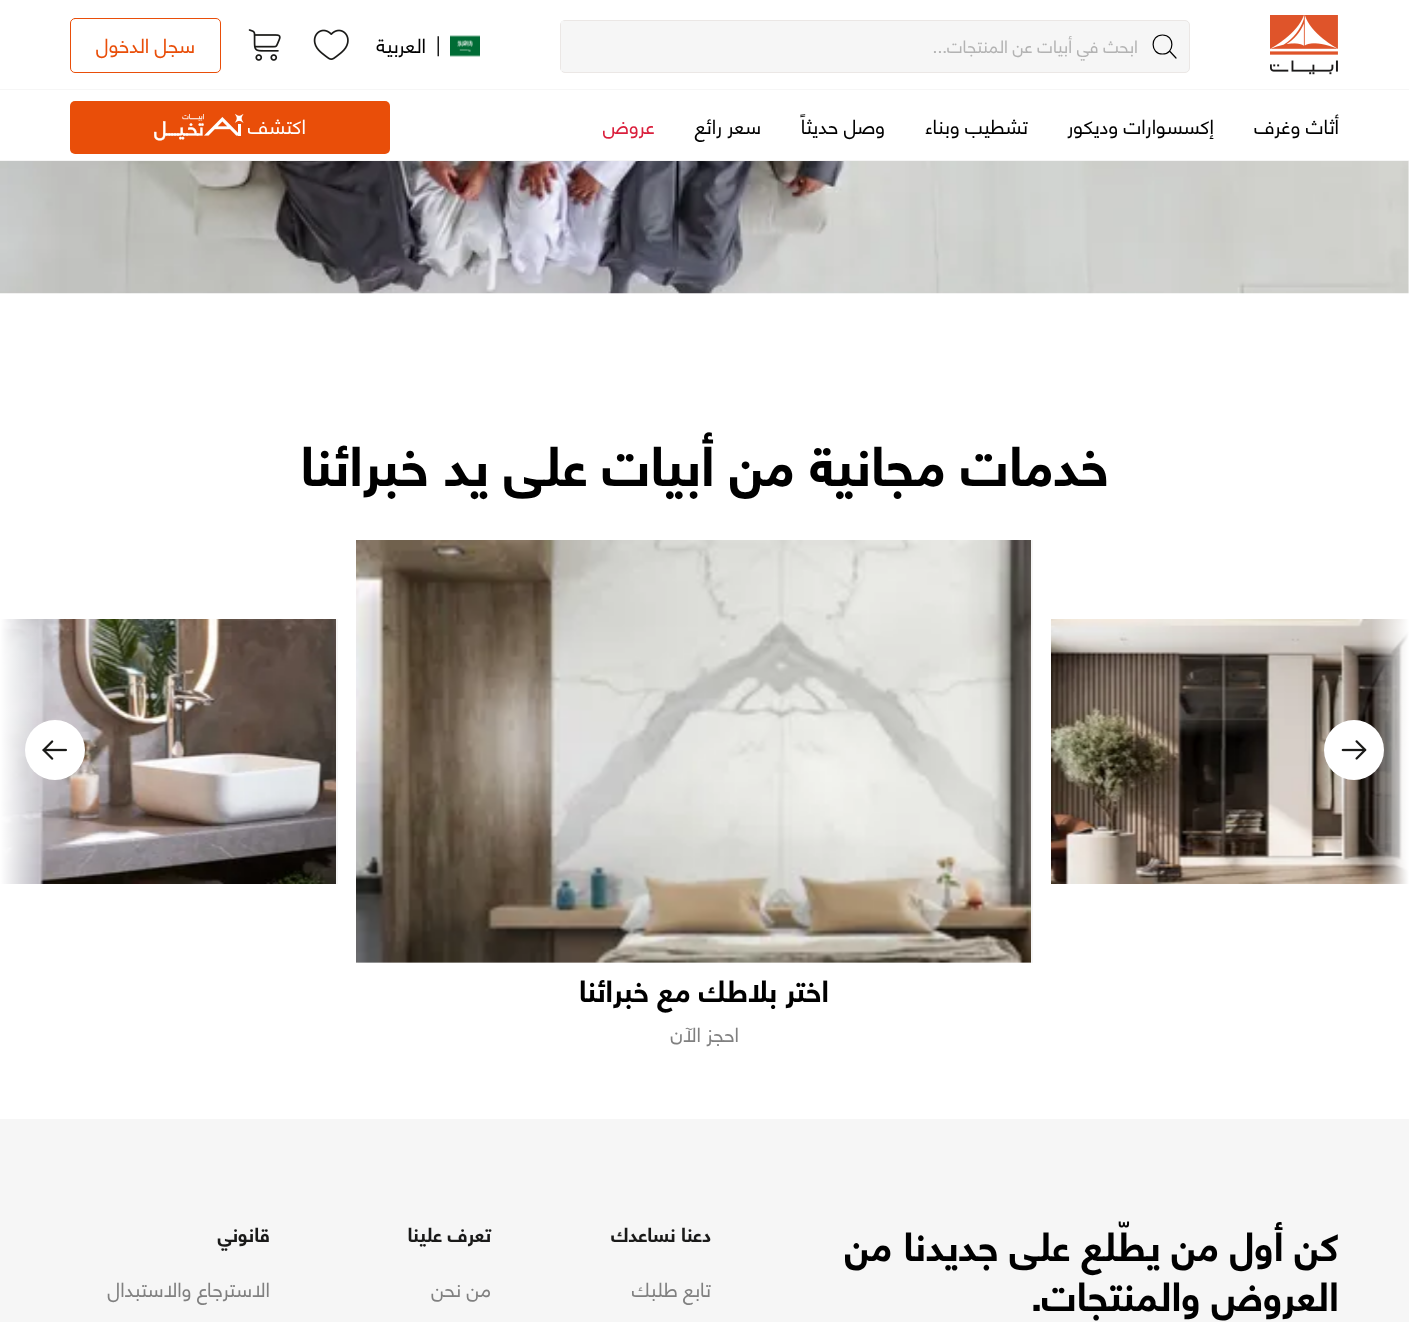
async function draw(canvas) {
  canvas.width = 1427;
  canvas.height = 1322;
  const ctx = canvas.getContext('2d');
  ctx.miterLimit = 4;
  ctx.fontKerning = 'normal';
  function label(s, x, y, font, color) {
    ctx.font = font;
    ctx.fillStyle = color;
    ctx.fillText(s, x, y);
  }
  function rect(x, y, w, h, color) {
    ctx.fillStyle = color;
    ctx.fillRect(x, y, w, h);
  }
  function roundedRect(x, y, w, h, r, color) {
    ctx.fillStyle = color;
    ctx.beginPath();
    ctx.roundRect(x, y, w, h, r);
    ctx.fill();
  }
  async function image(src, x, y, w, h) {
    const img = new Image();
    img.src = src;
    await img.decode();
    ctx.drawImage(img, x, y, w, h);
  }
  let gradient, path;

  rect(0, 0, 1427, 1322, '#fff');
  rect(0, 89, 1409, 1, '#f6f6f6');
  await image('assets/img1.png', 1270, 15, 68, 60);
  ctx.beginPath();
  ctx.roundRect(560.5, 20.5, 629, 52, 4.5);
  ctx.fill();
  ctx.strokeStyle = '#ebe7e5';
  ctx.stroke();
  path = new Path2D('M1162.5 54C1150 54 1150 35 1162.5 35C1175 35 1175 54 1162.5 54ZM1169.5 51L1176 58');
  ctx.strokeStyle = '#000';
  ctx.lineWidth = 1.2;
  ctx.lineCap = 'round';
  ctx.lineJoin = 'round';
  ctx.stroke(path);
  rect(561, 21, 3, 50, '#f6f6f6');
  ctx.direction = 'rtl';
  label('ابحث في أبيات عن المنتجات...', 1138, 53, '17.5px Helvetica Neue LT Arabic', '#b3b3b3');
  await image('assets/img2.png', 450, 35, 30, 22);
  ctx.direction = 'ltr';
  label('|', 436, 52, '20px Helvetica Neue LT Arabic', '#000');
  ctx.direction = 'rtl';
  label('العربية', 426, 53, '20px Helvetica Neue LT Arabic', '#000');
  await image('assets/img3.png', 313, 29, 36, 31);
  await image('assets/img4.png', 248, 29, 33, 32);
  ctx.beginPath();
  ctx.roundRect(70.5, 18.5, 150, 54, 4.5);
  ctx.strokeStyle = '#e94e09';
  ctx.lineWidth = 1;
  ctx.lineJoin = 'miter';
  ctx.stroke();
  label('سجل الدخول', 195, 53, '20px Helvetica Neue LT Arabic', '#e94e09');
  rect(0, 160, 1409, 1, '#f6f6f6');
  label('أثاث وغرف', 1339, 134, '20px Helvetica Neue LT Arabic', '#000');
  label('إكسسوارات وديكور', 1214, 134, '20px Helvetica Neue LT Arabic', '#000');
  label('تشطيب وبناء', 1028, 134, '20px Helvetica Neue LT Arabic', '#000');
  label('وصل حديثاً', 885, 134, '20px Helvetica Neue LT Arabic', '#000');
  label('سعر رائع', 761, 134, '20px Helvetica Neue LT Arabic', '#000');
  label('عروض', 655, 134, '20px Helvetica Neue LT Arabic', '#da1f3c');
  roundedRect(70, 101, 320, 53, 5, '#e94e09');
  label('اكتشف', 306, 134, '20px Helvetica Neue LT Arabic', '#fff');
  await image('assets/img5.png', 154, 114, 90, 27);
  await image('assets/img6.png', 0, 161, 1409, 133);
  label('خدمات مجانية من أبيات على يد خبرائنا', 1109, 486, 'bold 55px Helvetica Neue LT Arabic', '#000');
  await image('assets/img7.png', 1051, 619, 358, 265);
  rect(358, 540, 675, 423, '#f6f6f6');
  await image('assets/img8.png', 356, 540, 675, 423);
  rect(336, 619, 2, 265, '#f6f6f6');
  await image('assets/img9.png', 0, 619, 336, 265);
  gradient = ctx.createLinearGradient(1409, 751, 1371, 751);
  gradient.addColorStop(0, '#fff');
  gradient.addColorStop(1, '#ffffff00');
  ctx.fillStyle = gradient;
  ctx.fillRect(1372, 619, 37, 265);
  ctx.fillStyle = '#fff';
  ctx.beginPath();
  ctx.arc(1354, 750, 30, 0, 2 * Math.PI);
  ctx.fill();
  await image('assets/img10.png', 1341, 740, 26, 20);
  gradient = ctx.createLinearGradient(0, 751, 38, 751);
  gradient.addColorStop(0, '#fff');
  gradient.addColorStop(1, '#ffffff00');
  ctx.fillStyle = gradient;
  ctx.fillRect(0, 619, 37, 265);
  ctx.fillStyle = '#fff';
  ctx.beginPath();
  ctx.arc(55, 750, 30, 0, 2 * Math.PI);
  ctx.fill();
  await image('assets/img11.png', 42, 740, 25, 20);
  label('اختر بلاطك مع خبرائنا', 829, 1002, 'bold 30px Helvetica Neue LT Arabic', '#000');
  label('احجز الآن', 739, 1042, '20px Helvetica Neue LT Arabic', '#808080');
  rect(0, 1119, 1409, 203, '#f6f6f6');
  label('كن أول من يطّلع على جديدنا من', 1339, 1261, 'bold 40px Helvetica Neue LT Arabic', '#000');
  label('العروض والمنتجات.', 1339, 1311, 'bold 40px Helvetica Neue LT Arabic', '#000');
  label('دعنا نساعدك', 711, 1242, 'bold 20px Helvetica Neue LT Arabic', '#1a1a19');
  label('تابع طلبك', 711, 1297, '20px Helvetica Neue LT Arabic', '#808080');
  label('تعرف علينا', 491, 1242, 'bold 20px Helvetica Neue LT Arabic', '#1a1a19');
  label('من نحن', 491, 1297, '20px Helvetica Neue LT Arabic', '#808080');
  label('قانوني', 270, 1242, 'bold 20px Helvetica Neue LT Arabic', '#1a1a19');
  label('الاسترجاع والاستبدال', 270, 1297, '20px Helvetica Neue LT Arabic', '#808080');
}

draw(document.querySelector('canvas'));
